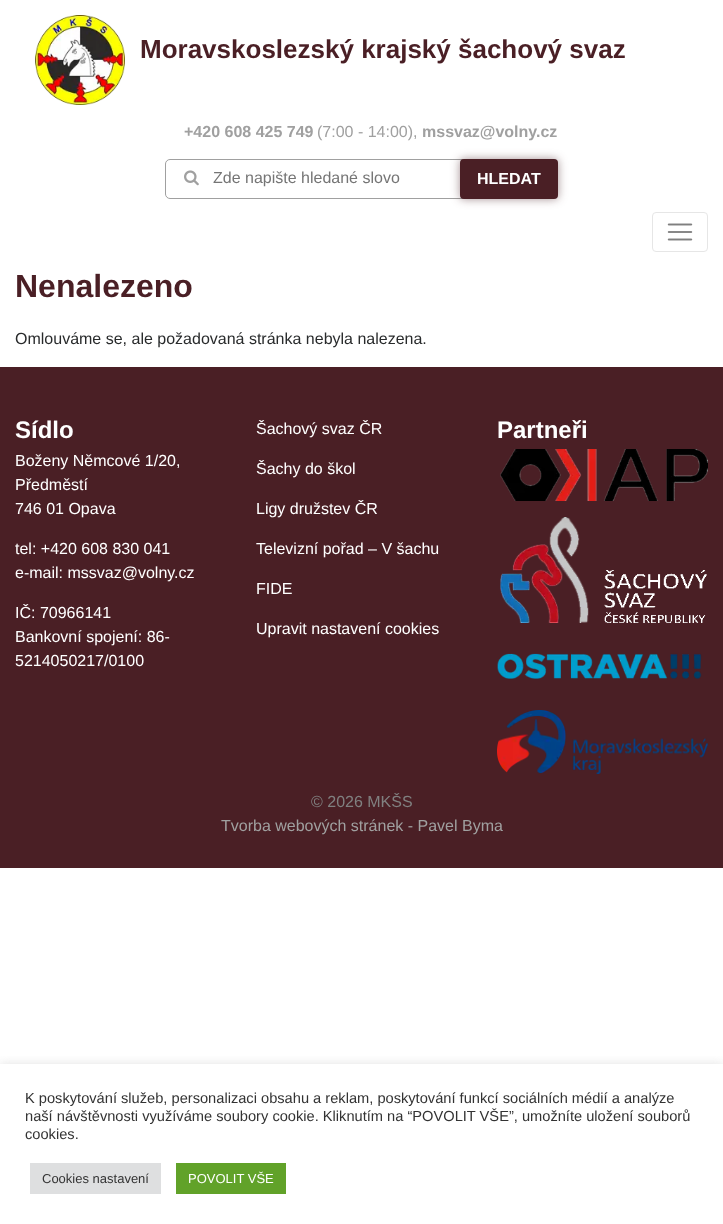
async function draw(canvas) {
  canvas.width = 723;
  canvas.height = 1224;
  const ctx = canvas.getContext('2d');
  ctx.miterLimit = 4;
  ctx.fontKerning = 'normal';
  function label(s, x, y, font, color) {
    ctx.font = font;
    ctx.fillStyle = color;
    ctx.fillText(s, x, y);
  }
  function rect(x, y, w, h, color) {
    ctx.fillStyle = color;
    ctx.fillRect(x, y, w, h);
  }
  function roundedRect(x, y, w, h, r, color) {
    ctx.fillStyle = color;
    ctx.beginPath();
    ctx.roundRect(x, y, w, h, r);
    ctx.fill();
  }
  async function image(src, x, y, w, h) {
    const img = new Image();
    img.src = src;
    await img.decode();
    ctx.drawImage(img, x, y, w, h);
  }

  rect(0, 0, 723, 1224, '#fff');
  await image('assets/img1.png', 35, 15, 90, 90);
  label('Moravskoslezský krajský šachový svaz', 140, 58, 'bold 26px Liberation Sans', '#4a1f25');
  label('+420 608 425 749', 184, 137, 'bold 16px Liberation Sans', '#a0a0a0');
  label('(7:00 - 14:00),', 317, 137, '16px Liberation Sans', '#a0a0a0');
  label('mssvaz@volny.cz', 422, 137, 'bold 16px Liberation Sans', '#a0a0a0');
  ctx.beginPath();
  ctx.roundRect(165.5, 159.5, 301, 39, [4.5, 0, 0, 4.5]);
  ctx.strokeStyle = '#a0a0a0';
  ctx.stroke();
  await image('assets/img2.png', 184, 170, 15, 16);
  label('Zde napište hledané slovo', 213, 183, '16px Liberation Sans', '#757575');
  ctx.fillStyle = '#4a1f2580';
  ctx.filter = 'blur(5px)';
  ctx.beginPath();
  ctx.roundRect(460, 159, 98, 40, 4);
  ctx.fill();
  ctx.filter = 'none';
  roundedRect(460, 159, 98, 40, 4, '#4a1f25');
  label('HLEDAT', 477, 184, 'bold 16px Liberation Sans', '#fff');
  ctx.beginPath();
  ctx.roundRect(652.5, 212.5, 55, 39, 3.5);
  ctx.strokeStyle = '#e6e6e6';
  ctx.stroke();
  await image('assets/img3.png', 667, 223, 26, 18);
  label('Nenalezeno', 15, 297, 'bold 32px Liberation Sans', '#4a1f25');
  label('Omlouváme se, ale požadovaná stránka nebyla nalezena.', 15, 344, '16px Liberation Sans', '#292b2c');
  rect(0, 367, 723, 501, '#4a1f25');
  label('Sídlo', 15, 438, 'bold 24px Liberation Sans', '#fff');
  label('Boženy Němcové 1/20,', 15, 466, '16px Liberation Sans', '#fff');
  label('Předměstí', 15, 490, '16px Liberation Sans', '#fff');
  label('746 01 Opava', 15, 514, '16px Liberation Sans', '#fff');
  label('tel: +420 608 830 041', 15, 554, '16px Liberation Sans', '#fff');
  label('e-mail: mssvaz@volny.cz', 15, 578, '16px Liberation Sans', '#fff');
  label('IČ: 70966141', 15, 618, '16px Liberation Sans', '#fff');
  label('Bankovní spojení: 86-', 15, 642, '16px Liberation Sans', '#fff');
  label('5214050217/0100', 15, 666, '16px Liberation Sans', '#fff');
  label('Šachový svaz ČR', 256, 434, '16px Liberation Sans', '#fff');
  label('Šachy do škol', 256, 474, '16px Liberation Sans', '#fff');
  label('Ligy družstev ČR', 256, 514, '16px Liberation Sans', '#fff');
  label('Televizní pořad – V šachu', 256, 554, '16px Liberation Sans', '#fff');
  label('FIDE', 256, 594, '16px Liberation Sans', '#fff');
  label('Upravit nastavení cookies', 256, 634, '16px Liberation Sans', '#fff');
  label('Partneři', 497, 438, 'bold 24px Liberation Sans', '#fff');
  await image('assets/img4.png', 500, 449, 208, 52);
  await image('assets/img5.png', 500, 517, 207, 106);
  await image('assets/img6.png', 497, 653, 205, 26);
  await image('assets/img7.png', 497, 710, 211, 64);
  label('© 2026 MKŠS', 311, 807, '16px Liberation Sans', '#808080');
  label('Tvorba webových stránek - Pavel Byma', 221, 831, '16px Liberation Sans', '#a0a0a0');
  ctx.save();
  ctx.beginPath();
  ctx.rect(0, 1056, 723, 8);
  ctx.clip();
  ctx.fillStyle = '#acabab4d';
  ctx.filter = 'blur(5px)';
  ctx.beginPath();
  ctx.rect(0, 1063, 723, 160);
  ctx.fill();
  ctx.filter = 'none';
  ctx.restore();
  label('K poskytování služeb, personalizaci obsahu a reklam, poskytování funkcí sociálních médií a analýze', 25, 1103, '14.65px Liberation Sans', '#333');
  label('naší návštěvnosti využíváme soubory cookie. Kliknutím na “POVOLIT VŠE”, umožníte uložení souborů', 25, 1121, '14.65px Liberation Sans', '#333');
  label('cookies.', 25, 1139, '14.65px Liberation Sans', '#333');
  rect(30, 1163, 131, 31, '#dedfe0');
  label('Cookies nastavení', 42, 1183, '13px Liberation Sans', '#333');
  rect(176, 1163, 110, 31, '#61a229');
  label('POVOLIT VŠE', 188, 1183, '13px Liberation Sans', '#fff');
}

draw(document.querySelector('canvas'));
